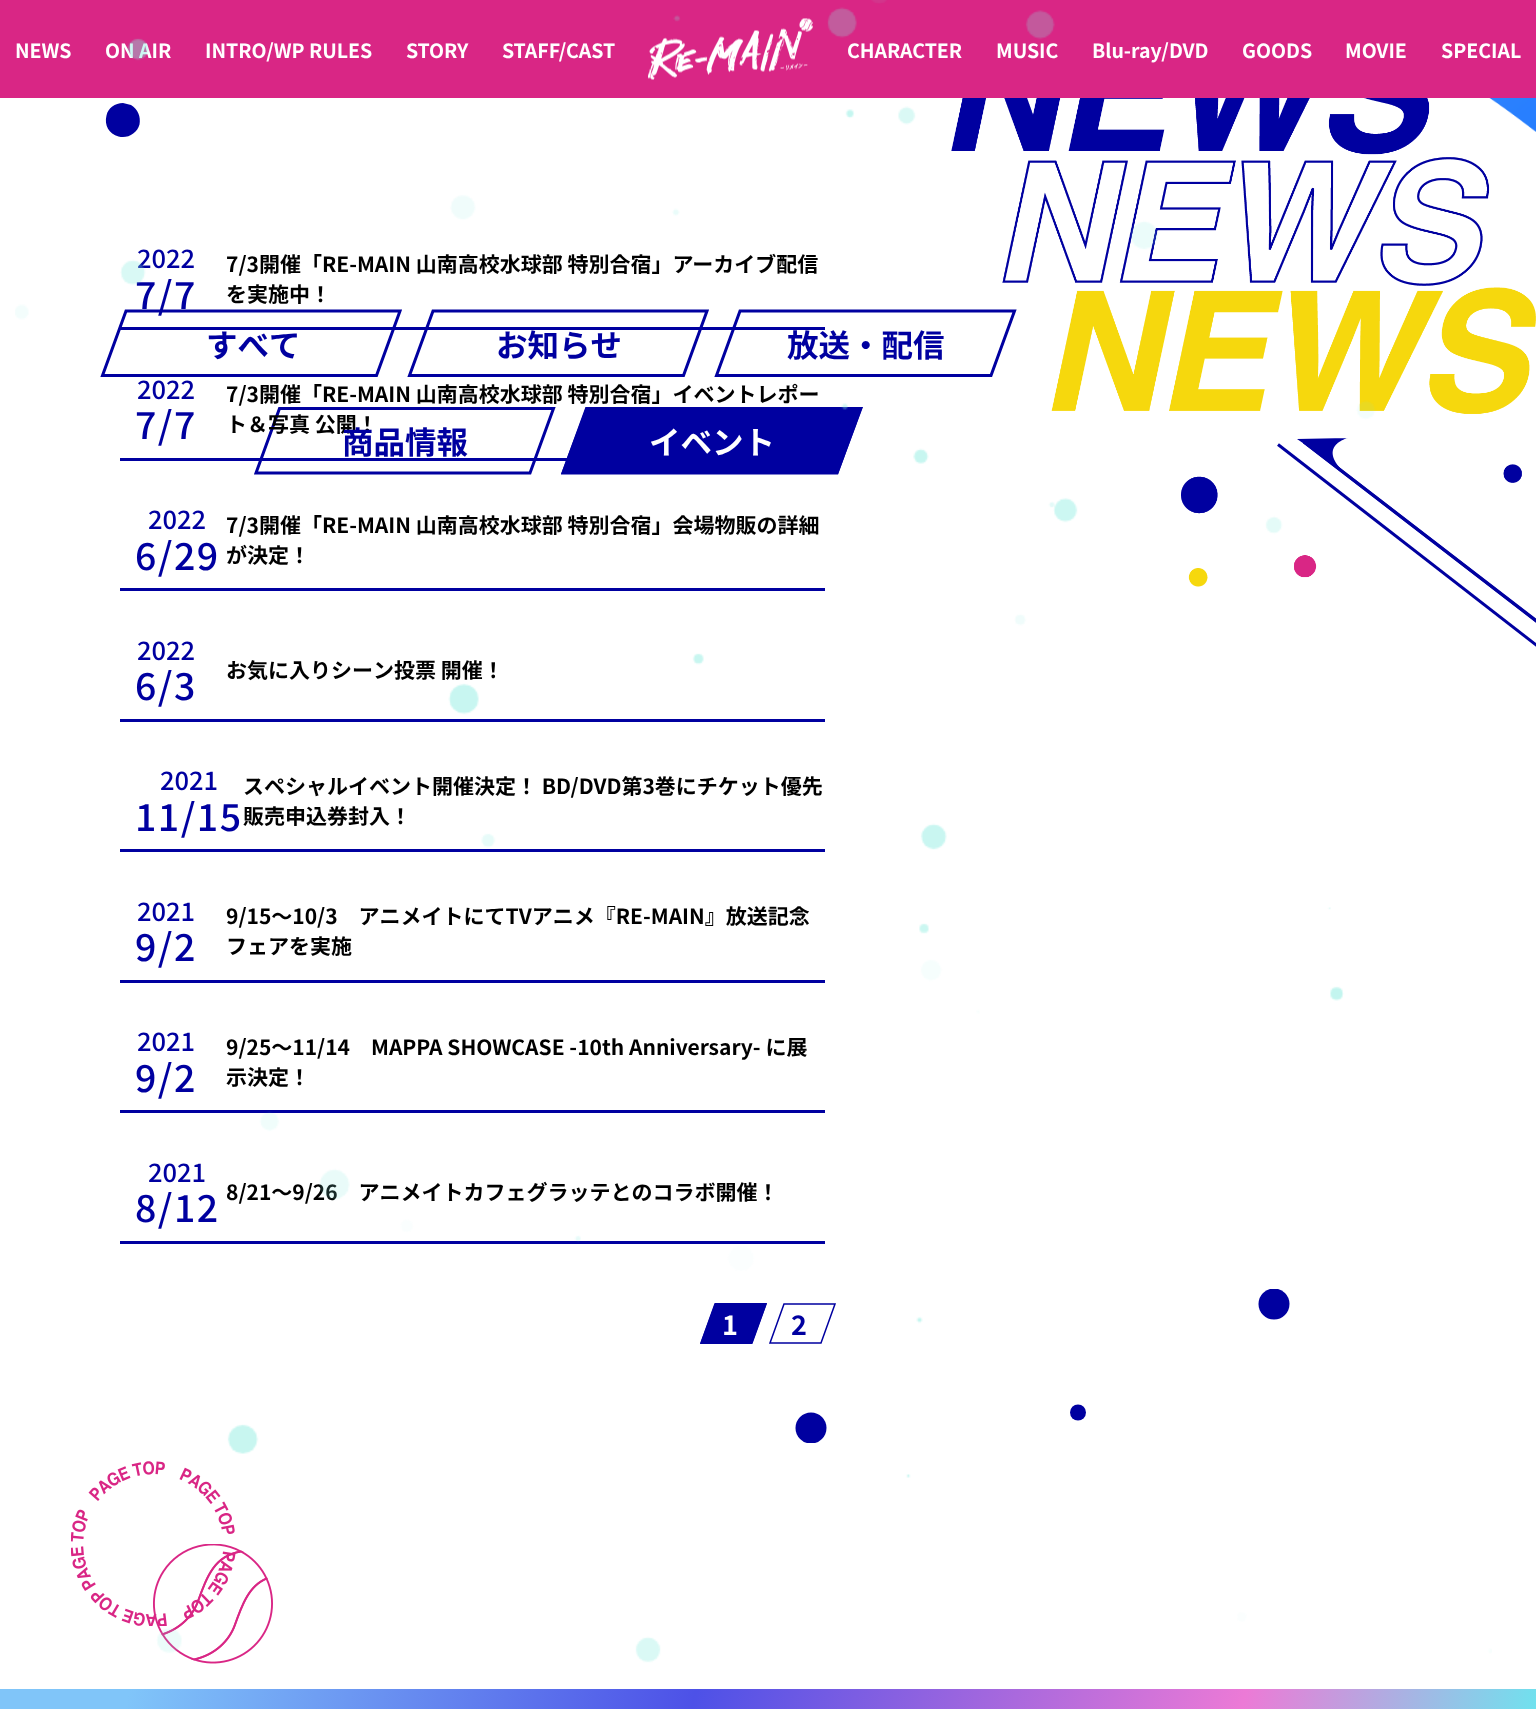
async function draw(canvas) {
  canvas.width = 1536;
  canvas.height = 1709;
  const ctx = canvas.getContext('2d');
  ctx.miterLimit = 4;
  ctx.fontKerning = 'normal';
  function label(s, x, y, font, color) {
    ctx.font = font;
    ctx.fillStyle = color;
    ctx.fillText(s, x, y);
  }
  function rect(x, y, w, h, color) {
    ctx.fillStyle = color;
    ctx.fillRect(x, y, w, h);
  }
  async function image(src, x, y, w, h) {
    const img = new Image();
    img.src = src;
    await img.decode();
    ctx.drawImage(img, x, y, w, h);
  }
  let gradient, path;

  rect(0, 0, 1536, 1709, '#fff');
  rect(0, 0, 1536, 98, '#d92685');
  label('NEWS', 15, 58, 'bold 19.5px Noto Sans JP', '#fff');
  label('ON AIR', 105, 58, 'bold 19.5px Noto Sans JP', '#fff');
  label('INTRO/WP RULES', 205, 58, 'bold 19.5px Noto Sans JP', '#fff');
  label('STORY', 406, 58, 'bold 19.5px Noto Sans JP', '#fff');
  label('STAFF/CAST', 502, 58, 'bold 19.5px Noto Sans JP', '#fff');
  await image('assets/img2.png', 648, 18, 165, 62);
  label('CHARACTER', 847, 58, 'bold 19.5px Noto Sans JP', '#fff');
  label('MUSIC', 996, 58, 'bold 19.5px Noto Sans JP', '#fff');
  label('Blu-ray/DVD', 1092, 58, 'bold 19.5px Noto Sans JP', '#fff');
  label('GOODS', 1242, 58, 'bold 19.5px Noto Sans JP', '#fff');
  label('MOVIE', 1345, 58, 'bold 19.5px Noto Sans JP', '#fff');
  label('SPECIAL', 1441, 58, 'bold 19.5px Noto Sans JP', '#fff');
  await image('assets/img3.png', 1489, 98, 47, 34);
  path = new Path2D('M126 311H400L376.5 375.5H102.5Z');
  ctx.strokeStyle = '#0000a0';
  ctx.lineWidth = 3;
  ctx.stroke(path);
  path = new Path2D('M433 311H707L683.5 375.5H409.5Z');
  ctx.stroke(path);
  await image('assets/img4.png', 951, 98, 585, 489);
  path = new Path2D('M740 311H1014.5L991 375.5H716.5Z');
  ctx.stroke(path);
  rect(120, 327, 705, 3, '#0000a0');
  label('2022', 137, 268, '500 25.5px Noto Sans JP', '#0000a0');
  ctx.letterSpacing = '1.5px';
  label('7/7', 135, 309, '500 37.5px Noto Sans JP', '#0000a0');
  ctx.letterSpacing = '0px';
  label('7/3開催「RE-MAIN 山南高校水球部 特別合宿」アーカイブ配信', 226, 272, 'bold 21px Noto Sans JP', '#000');
  label('を実施中！', 226, 302, 'bold 21px Noto Sans JP', '#000');
  path = new Path2D('M279.5 408.5H553.5L530 473H256Z');
  ctx.stroke(path);
  ctx.fillStyle = '#0000a0';
  path = new Path2D('M586 407H863L838 474H561Z');
  ctx.fill(path);
  path = new Path2D('M586.5 408.5H860.5L837 473H563Z');
  ctx.stroke(path);
  rect(120, 458, 447, 3, '#0000a0');
  label('2022', 137, 399, '500 25.5px Noto Sans JP', '#0000a0');
  ctx.letterSpacing = '1.5px';
  label('7/7', 135, 439, '500 37.5px Noto Sans JP', '#0000a0');
  ctx.letterSpacing = '0px';
  label('7/3開催「RE-MAIN 山南高校水球部 特別合宿」イベントレポー', 226, 402, 'bold 21px Noto Sans JP', '#000');
  label('ト＆写真 公開！', 226, 432, 'bold 21px Noto Sans JP', '#000');
  rect(120, 588, 705, 3, '#0000a0');
  label('2022', 148, 529, '500 25.5px Noto Sans JP', '#0000a0');
  ctx.letterSpacing = '1.5px';
  label('6/29', 135, 570, '500 37.5px Noto Sans JP', '#0000a0');
  ctx.letterSpacing = '0px';
  label('7/3開催「RE-MAIN 山南高校水球部 特別合宿」会場物販の詳細', 226, 533, 'bold 21px Noto Sans JP', '#000');
  label('が決定！', 226, 563, 'bold 21px Noto Sans JP', '#000');
  rect(120, 719, 705, 3, '#0000a0');
  label('2022', 137, 660, '500 25.5px Noto Sans JP', '#0000a0');
  ctx.letterSpacing = '1.5px';
  label('6/3', 135, 700, '500 37.5px Noto Sans JP', '#0000a0');
  ctx.letterSpacing = '0px';
  label('お気に入りシーン投票 開催！', 226, 678, 'bold 21px Noto Sans JP', '#000');
  rect(120, 849, 705, 3, '#0000a0');
  label('2021', 160, 790, '500 25.5px Noto Sans JP', '#0000a0');
  ctx.letterSpacing = '1.5px';
  label('11/15', 135, 831, '500 37.5px Noto Sans JP', '#0000a0');
  ctx.letterSpacing = '0px';
  label('スペシャルイベント開催決定！ BD/DVD第3巻にチケット優先', 243, 794, 'bold 21px Noto Sans JP', '#000');
  label('販売申込券封入！', 243, 824, 'bold 21px Noto Sans JP', '#000');
  rect(120, 980, 705, 3, '#0000a0');
  label('2021', 137, 921, '500 25.5px Noto Sans JP', '#0000a0');
  ctx.letterSpacing = '1.5px';
  label('9/2', 135, 961, '500 37.5px Noto Sans JP', '#0000a0');
  ctx.letterSpacing = '0px';
  label('9/15～10/3　アニメイトにてTVアニメ『RE-MAIN』放送記念', 226, 924, 'bold 21px Noto Sans JP', '#000');
  label('フェアを実施', 226, 954, 'bold 21px Noto Sans JP', '#000');
  rect(120, 1110, 705, 3, '#0000a0');
  label('2021', 137, 1051, '500 25.5px Noto Sans JP', '#0000a0');
  ctx.letterSpacing = '1.5px';
  label('9/2', 135, 1092, '500 37.5px Noto Sans JP', '#0000a0');
  ctx.letterSpacing = '0px';
  label('9/25～11/14　MAPPA SHOWCASE -10th Anniversary- に展', 226, 1055, 'bold 21px Noto Sans JP', '#000');
  label('示決定！', 226, 1085, 'bold 21px Noto Sans JP', '#000');
  rect(120, 1241, 705, 3, '#0000a0');
  label('2021', 148, 1182, '500 25.5px Noto Sans JP', '#0000a0');
  ctx.letterSpacing = '1.5px';
  label('8/12', 135, 1222, '500 37.5px Noto Sans JP', '#0000a0');
  ctx.letterSpacing = '0px';
  label('8/21～9/26　アニメイトカフェグラッテとのコラボ開催！', 226, 1200, 'bold 21px Noto Sans JP', '#000');
  ctx.save();
  ctx.beginPath();
  ctx.rect(795, 1289, 495, 154);
  ctx.clip();
  ctx.fillStyle = '#0000a0';
  ctx.beginPath();
  ctx.arc(811, 1428, 15.5, 0, 2 * Math.PI);
  ctx.fill();
  ctx.beginPath();
  ctx.arc(1274, 1304, 15.5, 0, 2 * Math.PI);
  ctx.fill();
  ctx.restore();
  ctx.fillStyle = '#0000a0';
  ctx.beginPath();
  ctx.arc(1078, 1412.5, 8, 0, 2 * Math.PI);
  ctx.fill();
  path = new Path2D('M123 103C115 103 108 108 106.5 115.5C104 125 109 134 118.5 136.5C127.5 139 137 133.5 139.5 124.5C141 117 138 109 131 105Z');
  ctx.fill(path);
  label('すべて', 206, 357, 'bold 31.5px Noto Sans JP', '#0000a0');
  label('お知らせ', 496, 357, 'bold 31.5px Noto Sans JP', '#0000a0');
  label('放送・配信', 787, 357, 'bold 31.5px Noto Sans JP', '#0000a0');
  label('商品情報', 342, 454, 'bold 31.5px Noto Sans JP', '#0000a0');
  label('イベント', 649, 454, 'bold 31.5px Noto Sans JP', '#fff');
  ctx.fillStyle = '#0000a0';
  path = new Path2D('M715 1303H767L752 1344H700Z');
  ctx.fill(path);
  path = new Path2D('M715 1304H766L752 1343H701Z');
  ctx.lineWidth = 1.5;
  ctx.stroke(path);
  ctx.letterSpacing = '-1px';
  label('1', 722, 1335, 'bold 27px Noto Sans JP', '#fff');
  path = new Path2D('M784 1304H835L821 1343H770Z');
  ctx.stroke(path);
  label('2', 791, 1335, 'bold 27px Noto Sans JP', '#0000a0');
  path = new Path2D('M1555.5 635.5L1304 442');
  ctx.lineWidth = 3;
  ctx.stroke(path);
  path = new Path2D('M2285.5 1227L1278 444.5');
  ctx.stroke(path);
  path = new Path2D('M1341 469L1297 439L1348 438C1348 438 1319 445 1341 469Z');
  ctx.fill(path);
  path = new Path2D('M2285.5 1198.5L1304 442');
  ctx.stroke(path);
  await image('assets/img6.png', 153, 1544, 120, 120);
  await image('assets/img5.png', 71, 1461, 165, 165);
  await image('assets/img1.png', 15, 0, 1477, 1663);
  gradient = ctx.createLinearGradient(5.7, 1666, 1530, 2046);
  gradient.addColorStop(0.08, '#80c5f9');
  gradient.addColorStop(0.43, '#4d51e7');
  gradient.addColorStop(0.77, '#ec7ad6');
  gradient.addColorStop(0.99, '#56f7f3');
  ctx.fillStyle = gradient;
  ctx.fillRect(0, 1689, 1536, 20);
}

draw(document.querySelector('canvas'));
